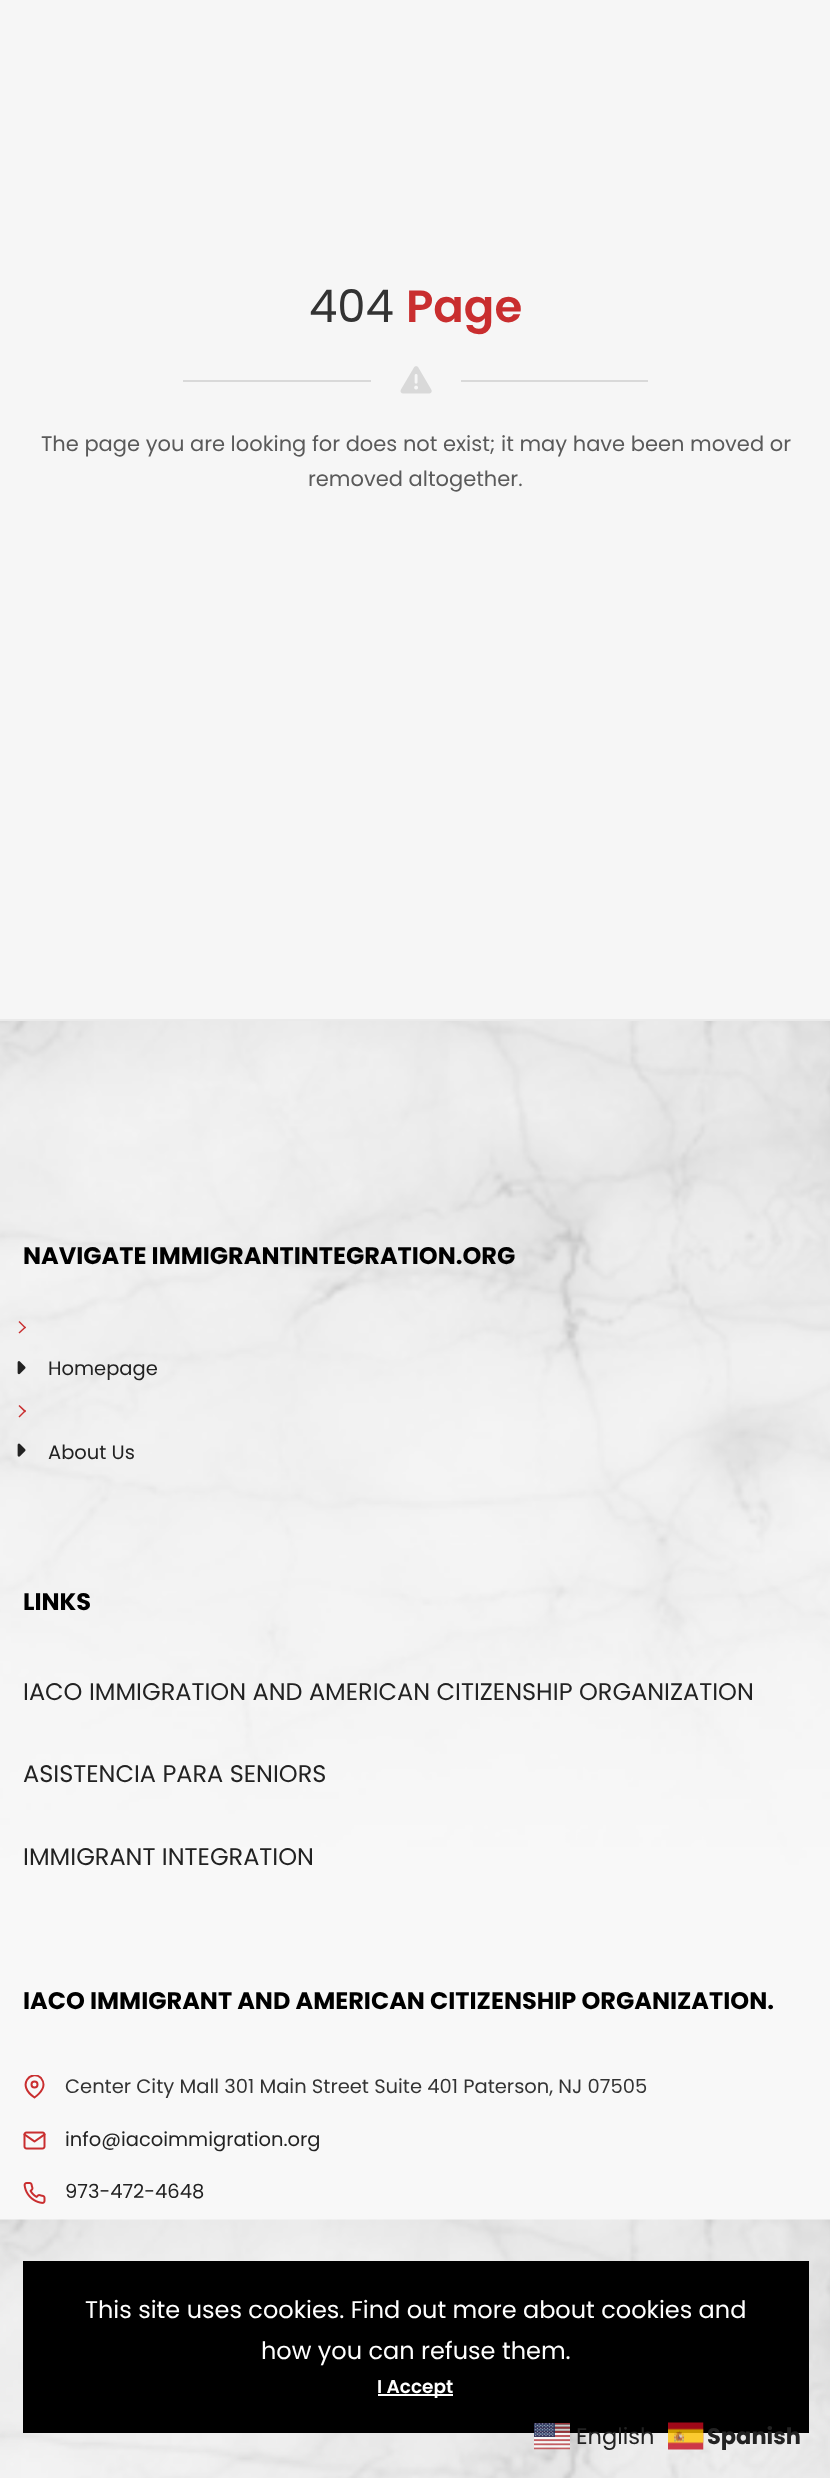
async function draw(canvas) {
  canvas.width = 830;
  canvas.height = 2478;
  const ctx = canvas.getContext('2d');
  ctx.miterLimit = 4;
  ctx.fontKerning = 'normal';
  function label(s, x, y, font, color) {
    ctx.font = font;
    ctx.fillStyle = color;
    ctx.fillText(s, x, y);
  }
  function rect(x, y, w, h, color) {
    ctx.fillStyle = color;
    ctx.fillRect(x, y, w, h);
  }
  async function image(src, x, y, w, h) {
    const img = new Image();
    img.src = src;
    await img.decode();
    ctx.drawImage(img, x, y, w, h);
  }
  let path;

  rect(0, 0, 830, 2478, '#f6f6f6');
  label('404', 309, 322, '45px Poppins', '#333');
  label('Page', 406, 322, '600 45px Poppins', '#c92e2f');
  rect(183, 380, 188, 2, '#d9d9d9');
  await image('assets/img1.png', 400, 366, 32, 28);
  rect(461, 380, 187, 2, '#d9d9d9');
  label('The page you are looking for does not exist; it may have been moved or', 41, 451, '21px Poppins', '#5a5a5a');
  label('removed altogether.', 308, 486, '21px Poppins', '#5a5a5a');
  await image('assets/img2.png', 0, 1021, 830, 1457);
  rect(0, 1019, 830, 2, '#eaeaea');
  label('NAVIGATE IMMIGRANTINTEGRATION.ORG', 23, 1264, 'bold 24px Poppins', '#000');
  ctx.fillStyle = '#c92e2f';
  path = new Path2D('M26 1327.5L19.5 1333.5L18.5 1332.5L25 1326.5Z');
  ctx.fill(path);
  path = new Path2D('M26 1327.5L25 1328.5L18.5 1322L19.5 1321Z');
  ctx.fill(path);
  await image('assets/img3.png', 17, 1361, 9, 14);
  label('Homepage', 48, 1375, '19.5px Poppins', '#222');
  ctx.fillStyle = '#c92e2f';
  path = new Path2D('M26 1411L19.5 1417.5L18.5 1416.5L25 1410Z');
  ctx.fill(path);
  path = new Path2D('M26 1411L25 1412.5L18.5 1406L19.5 1405Z');
  ctx.fill(path);
  await image('assets/img4.png', 17, 1443, 9, 14);
  label('About Us', 48, 1459, '19.5px Poppins', '#222');
  label('LINKS', 23, 1610, 'bold 24px Poppins', '#000');
  label('IACO IMMIGRATION AND AMERICAN CITIZENSHIP ORGANIZATION', 23, 1700, '24px Poppins', '#222');
  label('ASISTENCIA PARA SENIORS', 23, 1782, '24px Poppins', '#222');
  label('IMMIGRANT INTEGRATION', 23, 1865, '24px Poppins', '#222');
  label('IACO IMMIGRANT AND AMERICAN CITIZENSHIP ORGANIZATION.', 23, 2009, 'bold 24px Poppins', '#000');
  ctx.save();
  ctx.beginPath();
  ctx.rect(23, 2075, 24, 24);
  ctx.clip();
  path = new Path2D('M43.5 2084.5C43.5 2091.5 34.5 2097.5 34.5 2097.5C15.5 2085 31.5 2069 41 2078C42.5 2080 43.5 2082 43.5 2084.5Z');
  ctx.strokeStyle = '#c92e2f';
  ctx.lineWidth = 2;
  ctx.lineCap = 'round';
  ctx.lineJoin = 'round';
  ctx.stroke(path);
  ctx.restore();
  ctx.beginPath();
  ctx.arc(34.5, 2084.5, 3, 0, 2 * Math.PI);
  ctx.strokeStyle = '#c92e2f';
  ctx.lineWidth = 2;
  ctx.stroke();
  label('Center City Mall 301 Main Street Suite 401 Paterson, NJ 07505', 65, 2093, '19.5px Poppins', '#333');
  await image('assets/img5.png', 23, 2131, 23, 19);
  label('info@iacoimmigration.org', 65, 2146, '19.5px Poppins', '#222');
  await image('assets/img6.png', 23, 2182, 23, 22);
  label('973-472-4648', 65, 2198, '19.5px Poppins', '#222');
  rect(23, 2261, 786, 172, '#000');
  label('This site uses cookies. Find out more about cookies and', 85, 2318, '24px Poppins', '#fff');
  label('how you can refuse them.', 261, 2359, '24px Poppins', '#fff');
  rect(378, 2394, 75, 2, '#fff');
  label('I Accept', 377, 2393, '600 18.5px Poppins', '#fff');
  await image('assets/img7.png', 534, 2423, 36, 27);
  label('English', 576, 2444, '22.5px Poppins', '#222');
  await image('assets/img8.png', 668, 2422, 36, 28);
  label('Spanish', 707, 2444, 'bold 22.5px Poppins', '#222');
}

draw(document.querySelector('canvas'));
